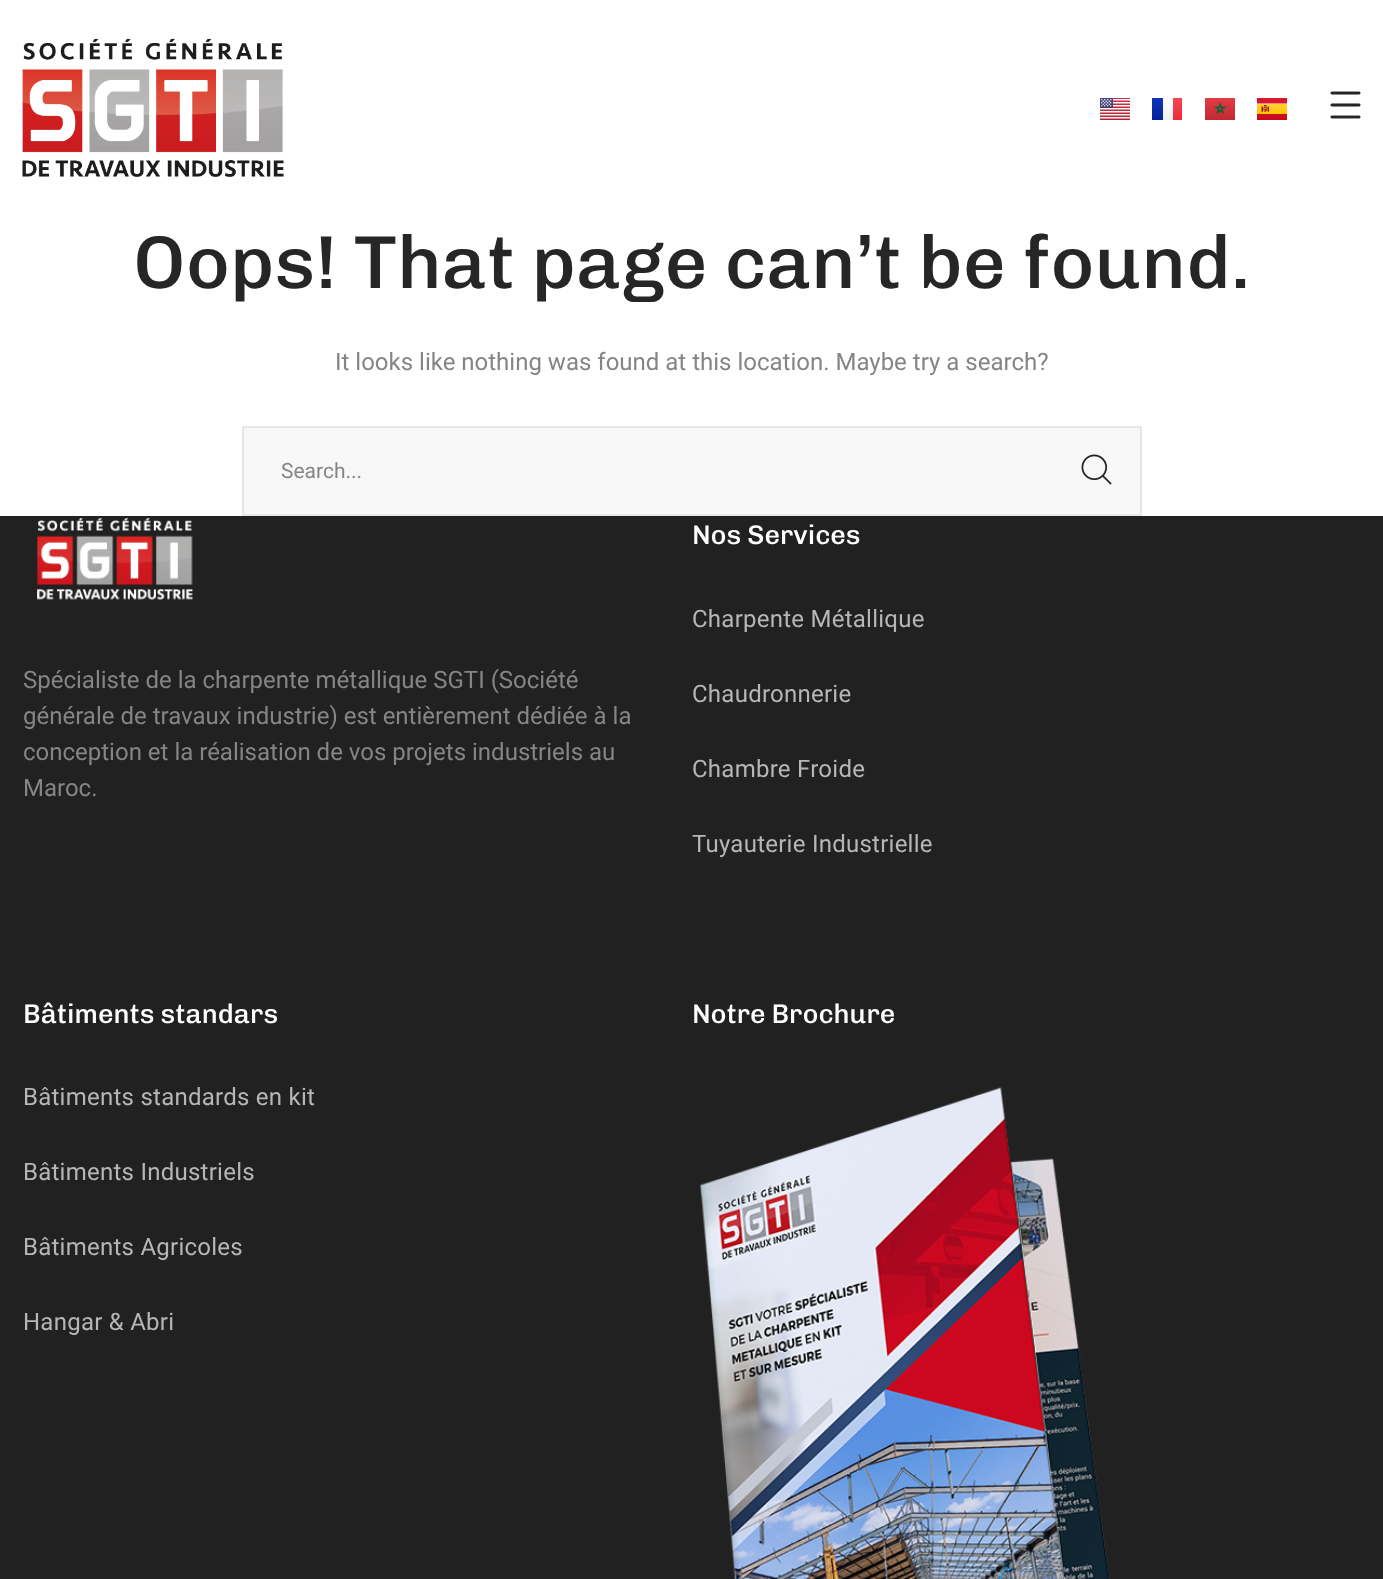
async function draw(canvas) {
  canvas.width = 1383;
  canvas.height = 1579;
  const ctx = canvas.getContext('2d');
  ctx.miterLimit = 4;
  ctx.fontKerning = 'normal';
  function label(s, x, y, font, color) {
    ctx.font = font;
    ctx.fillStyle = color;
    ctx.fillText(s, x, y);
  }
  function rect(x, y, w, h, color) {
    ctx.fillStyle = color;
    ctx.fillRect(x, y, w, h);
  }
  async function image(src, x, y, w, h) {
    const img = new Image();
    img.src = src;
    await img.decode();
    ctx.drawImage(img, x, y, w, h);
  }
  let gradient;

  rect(0, 0, 1383, 1579, '#fff');
  await image('assets/img1.png', 22, 38, 262, 139);
  await image('assets/img2.png', 1100, 98, 30, 22);
  gradient = ctx.createLinearGradient(1157, 98, 1157, 120);
  gradient.addColorStop(0, '#1035bb');
  gradient.addColorStop(1, '#042396');
  ctx.fillStyle = gradient;
  ctx.fillRect(1152, 98, 11, 22);
  gradient = ctx.createLinearGradient(1168, 98, 1168, 120);
  gradient.addColorStop(0, '#fff');
  gradient.addColorStop(1, '#f0f0f0');
  ctx.fillStyle = gradient;
  ctx.fillRect(1163, 102, 10, 18);
  gradient = ctx.createLinearGradient(1175, 98, 1175, 120);
  gradient.addColorStop(0, '#f44653');
  gradient.addColorStop(1, '#ee2a39');
  ctx.fillStyle = gradient;
  ctx.fillRect(1173, 98, 9, 22);
  await image('assets/img3.png', 1205, 98, 30, 22);
  await image('assets/img4.png', 1257, 98, 30, 22);
  await image('assets/img5.png', 1330, 91, 31, 28);
  label('Oops! That page can’t be found.', 133, 288, '500 75px Chivo', '#262626');
  label('It looks like nothing was found at this location. Maybe try a search?', 335, 370, '24px Roboto', '#858585');
  ctx.fillStyle = '#f8f8f9';
  ctx.beginPath();
  ctx.rect(243, 427, 898, 88);
  ctx.fill();
  ctx.strokeStyle = '#e7e7e7';
  ctx.lineWidth = 2;
  ctx.stroke();
  label('Search...', 281, 478, '21px Roboto', '#858585');
  await image('assets/img6.png', 1081, 454, 31, 31);
  rect(0, 516, 1383, 1063, '#212121');
  await image('assets/img7.png', 37, 518, 156, 82);
  label('Spécialiste de la charpente métallique SGTI (Société', 23, 688, '24px Roboto', '#858585');
  label('générale de travaux industrie) est entièrement dédiée à la', 23, 724, '24px Roboto', '#858585');
  label('conception et la réalisation de vos projets industriels au', 23, 760, '24px Roboto', '#858585');
  label('Maroc.', 23, 796, '24px Roboto', '#858585');
  label('Nos Services', 692, 544, '500 27px Chivo', '#fff');
  ctx.letterSpacing = '0.25px';
  label('Charpente Métallique', 692, 627, '24px Roboto', '#b6b6b6');
  label('Chaudronnerie', 692, 702, '24px Roboto', '#b6b6b6');
  label('Chambre Froide', 692, 777, '24px Roboto', '#b6b6b6');
  label('Tuyauterie Industrielle', 692, 852, '24px Roboto', '#b6b6b6');
  ctx.letterSpacing = '0px';
  label('Bâtiments standars', 23, 1023, '500 27px Chivo', '#fff');
  ctx.letterSpacing = '0.25px';
  label('Bâtiments standards en kit', 23, 1105, '24px Roboto', '#b6b6b6');
  label('Bâtiments Industriels', 23, 1180, '24px Roboto', '#b6b6b6');
  label('Bâtiments Agricoles', 23, 1255, '24px Roboto', '#b6b6b6');
  label('Hangar & Abri', 23, 1330, '24px Roboto', '#b6b6b6');
  ctx.letterSpacing = '0px';
  label('Notre Brochure', 692, 1023, '500 27px Chivo', '#fff');
  await image('assets/img8.png', 700, 1087, 410, 492);
}

draw(document.querySelector('canvas'));
